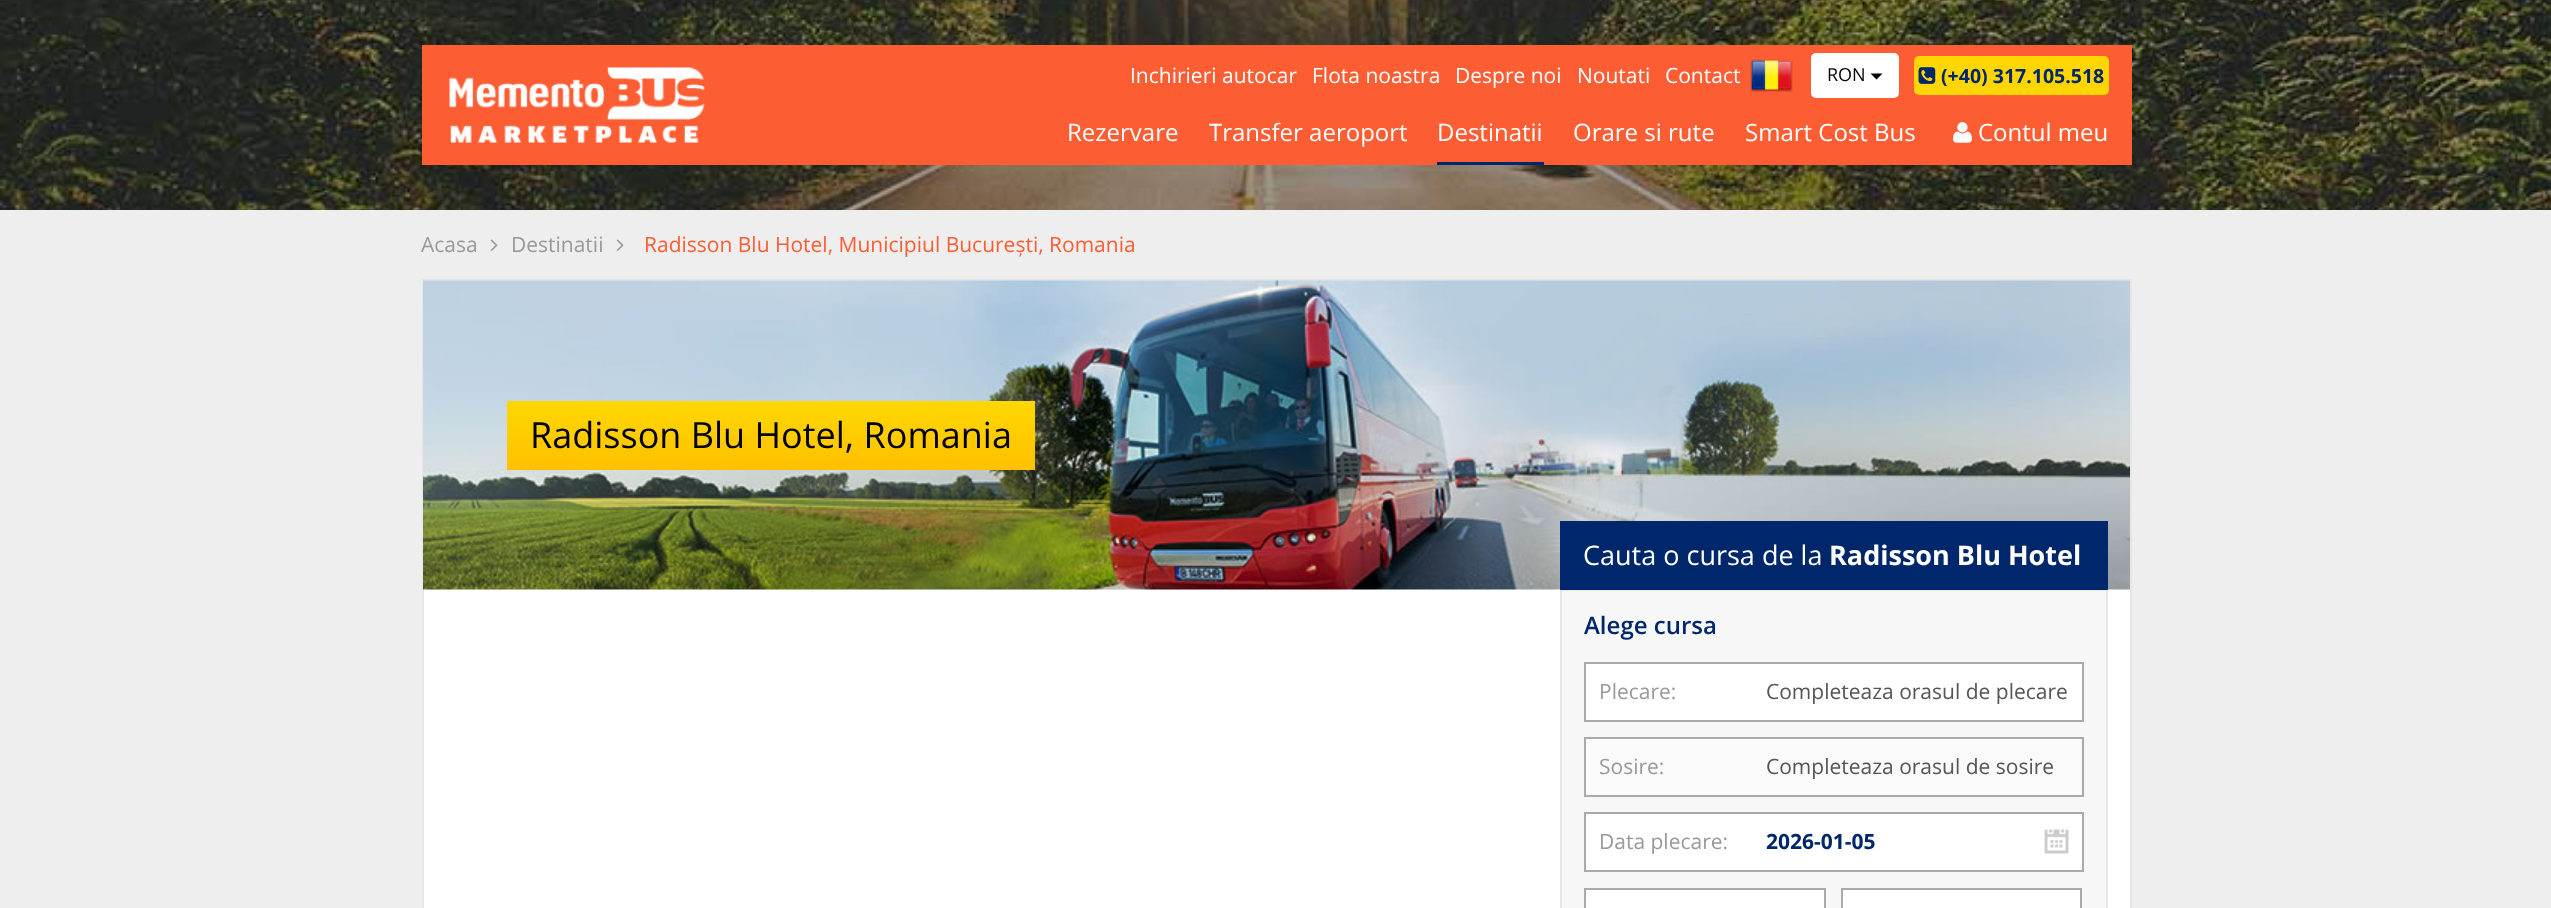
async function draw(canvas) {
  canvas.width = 2551;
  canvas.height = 908;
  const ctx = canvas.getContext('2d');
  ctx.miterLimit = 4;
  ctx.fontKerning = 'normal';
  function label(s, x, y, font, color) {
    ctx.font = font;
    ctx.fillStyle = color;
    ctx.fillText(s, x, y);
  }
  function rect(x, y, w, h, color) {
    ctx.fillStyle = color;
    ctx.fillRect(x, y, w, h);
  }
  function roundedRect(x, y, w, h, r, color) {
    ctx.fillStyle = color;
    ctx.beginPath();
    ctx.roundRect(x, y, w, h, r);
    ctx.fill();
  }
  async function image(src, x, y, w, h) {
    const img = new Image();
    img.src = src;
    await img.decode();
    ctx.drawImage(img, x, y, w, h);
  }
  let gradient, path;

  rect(0, 0, 2551, 908, '#eee');
  await image('assets/img1.png', 0, 0, 2551, 210);
  rect(422, 45, 1710, 120, '#fc5d33');
  await image('assets/img2.png', 449, 67, 256, 76);
  label('Inchirieri autocar', 1130, 83, '21px Open Sans', '#fff');
  label('Flota noastra', 1312, 83, '21px Open Sans', '#fff');
  label('Despre noi', 1455, 83, '21px Open Sans', '#fff');
  label('Noutati', 1577, 83, '21px Open Sans', '#fff');
  label('Contact', 1665, 83, '21px Open Sans', '#fff');
  await image('assets/img3.png', 1750, 59, 43, 33);
  roundedRect(1811, 53, 88, 45, 5, '#fff');
  label('RON', 1827, 81, '18px Open Sans', '#020202');
  ctx.fillStyle = '#000';
  path = new Path2D('M1870.5 73.5H1882.5L1876.5 79.5Z');
  ctx.fill(path);
  roundedRect(1914, 56, 195, 39, 5, '#ffd601');
  await image('assets/img4.png', 1918, 67, 18, 17);
  label('(+40) 317.105.518', 1941, 83, 'bold 19.5px Open Sans', '#00266b');
  label('Rezervare', 1067, 141, '24px Open Sans', '#fff');
  label('Transfer aeroport', 1209, 141, '24px Open Sans', '#fff');
  rect(1437, 162, 107, 3, '#00266b');
  label('Destinatii', 1437, 141, '24px Open Sans', '#fff');
  label('Orare si rute', 1573, 141, '24px Open Sans', '#fff');
  label('Smart Cost Bus', 1745, 141, '24px Open Sans', '#fff');
  await image('assets/img5.png', 1953, 122, 19, 21);
  label('Contul meu', 1978, 141, '24px Open Sans', '#fff');
  label('Acasa', 421, 252, '21px Open Sans', '#999');
  await image('assets/img6.png', 490, 239, 8, 12);
  label('Destinatii', 511, 252, '21px Open Sans', '#999');
  await image('assets/img6.png', 616, 239, 8, 12);
  label('Radisson Blu Hotel, Municipiul București, Romania', 644, 252, '21px Open Sans', '#fc5d33');
  rect(424, 589, 1706, 319, '#fff');
  ctx.strokeStyle = '#e6e6e6';
  ctx.lineWidth = 2;
  ctx.strokeRect(423, 280, 1708, 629);
  await image('assets/img7.png', 423, 280, 1707, 310);
  gradient = ctx.createLinearGradient(771, 470, 771, 401);
  gradient.addColorStop(0, '#ffc000');
  gradient.addColorStop(1, '#ffd800');
  ctx.fillStyle = gradient;
  ctx.fillRect(507, 401, 528, 69);
  label('Radisson Blu Hotel, Romania', 530, 448, '36px Open Sans', '#020202');
  rect(1560, 521, 548, 69, '#00266b');
  label('Cauta o cursa de la', 1583, 565, '27px Open Sans', '#fff');
  label('Radisson Blu Hotel', 1829, 565, 'bold 27px Open Sans', '#fff');
  ctx.strokeRect(1561, 591, 546, 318);
  rect(1562, 591, 544, 317, '#f7f7f7');
  label('Alege cursa', 1584, 634, '600 24px Open Sans', '#00266b');
  ctx.fillStyle = '#fff';
  ctx.beginPath();
  ctx.rect(1585, 663, 498, 58);
  ctx.fill();
  ctx.strokeStyle = '#aaa';
  ctx.stroke();
  label('Plecare:', 1599, 699, '21px Open Sans', '#999');
  label('Completeaza orasul de plecare', 1766, 699, '21px Open Sans', '#555');
  ctx.fillStyle = '#fafafa';
  ctx.beginPath();
  ctx.rect(1585, 738, 498, 58);
  ctx.fill();
  ctx.stroke();
  label('Sosire:', 1599, 774, '21px Open Sans', '#999');
  label('Completeaza orasul de sosire', 1766, 774, '21px Open Sans', '#555');
  rect(1586, 814, 496, 56, '#fff');
  await image('assets/img8.png', 2044, 829, 25, 25);
  ctx.strokeRect(1585, 813, 498, 58);
  label('Data plecare:', 1599, 849, '21px Open Sans', '#999');
  label('2026-01-05', 1766, 849, 'bold 21px Open Sans', '#00266b');
  ctx.fillStyle = '#fff';
  ctx.beginPath();
  ctx.rect(1585, 889, 240, 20);
  ctx.fill();
  ctx.stroke();
  ctx.beginPath();
  ctx.rect(1842, 889, 239, 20);
  ctx.fill();
  ctx.stroke();
}

draw(document.querySelector('canvas'));
